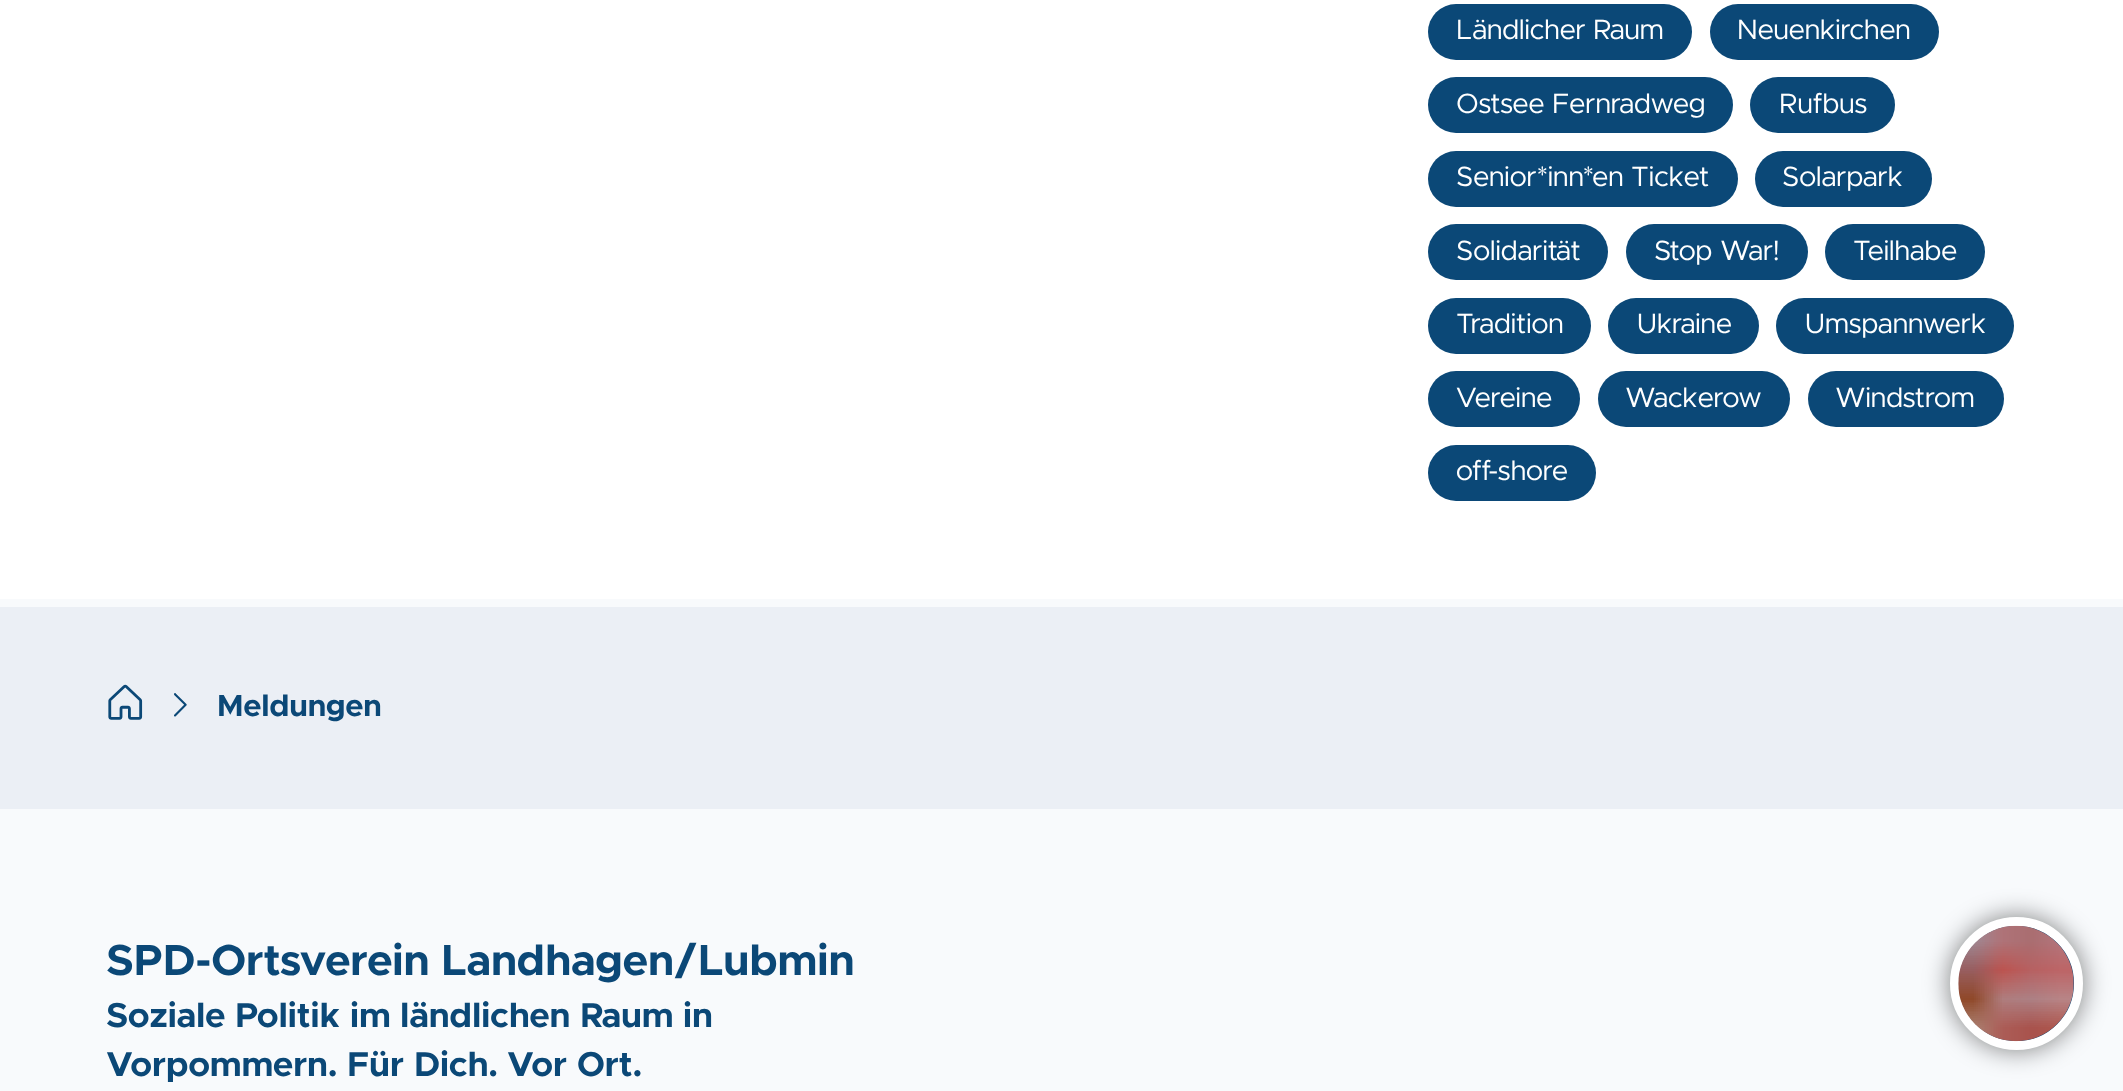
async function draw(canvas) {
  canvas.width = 2123;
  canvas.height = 1091;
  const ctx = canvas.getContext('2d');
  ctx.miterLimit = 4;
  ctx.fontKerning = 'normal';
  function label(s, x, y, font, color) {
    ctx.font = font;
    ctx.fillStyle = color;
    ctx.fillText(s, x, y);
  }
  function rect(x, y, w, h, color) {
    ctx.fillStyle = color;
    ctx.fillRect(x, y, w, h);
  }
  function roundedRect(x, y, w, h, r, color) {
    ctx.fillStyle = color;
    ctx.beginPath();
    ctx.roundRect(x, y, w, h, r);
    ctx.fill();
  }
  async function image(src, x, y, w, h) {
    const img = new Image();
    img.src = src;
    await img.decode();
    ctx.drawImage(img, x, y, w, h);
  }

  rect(0, 0, 2123, 1091, '#ebeff5');
  rect(0, 0, 2123, 599, '#fff');
  roundedRect(1428, 4, 264, 56, 28, '#0b4877');
  label('Ländlicher', 1456, 39, '28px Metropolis', '#fff');
  label('Raum', 1593, 39, '28px Metropolis', '#fff');
  roundedRect(1710, 4, 229, 56, 28, '#0b4877');
  label('Neuenkirchen', 1737, 39, '28px Metropolis', '#fff');
  roundedRect(1428, 77, 305, 56, 28, '#0b4877');
  label('Ostsee', 1456, 113, '28px Metropolis', '#fff');
  label('Fernradweg', 1552, 113, '28px Metropolis', '#fff');
  roundedRect(1750, 77, 145, 56, 28, '#0b4877');
  label('Rufbus', 1779, 113, '28px Metropolis', '#fff');
  roundedRect(1428, 151, 310, 56, 28, '#0b4877');
  label('Senior*inn*en', 1456, 186, '28px Metropolis', '#fff');
  label('Ticket', 1631, 186, '28px Metropolis', '#fff');
  roundedRect(1755, 151, 177, 56, 28, '#0b4877');
  label('Solarpark', 1782, 186, '28px Metropolis', '#fff');
  roundedRect(1428, 224, 180, 56, 28, '#0b4877');
  label('Solidarität', 1456, 260, '28px Metropolis', '#fff');
  roundedRect(1626, 224, 182, 56, 28, '#0b4877');
  label('Stop', 1654, 260, '28px Metropolis', '#fff');
  label('War!', 1720, 260, '28px Metropolis', '#fff');
  roundedRect(1825, 224, 160, 56, 28, '#0b4877');
  label('Teilhabe', 1853, 260, '28px Metropolis', '#fff');
  roundedRect(1428, 298, 163, 56, 28, '#0b4877');
  label('Tradition', 1456, 333, '28px Metropolis', '#fff');
  roundedRect(1608, 298, 151, 56, 28, '#0b4877');
  label('Ukraine', 1637, 333, '28px Metropolis', '#fff');
  roundedRect(1776, 298, 238, 56, 28, '#0b4877');
  label('Umspannwerk', 1805, 333, '28px Metropolis', '#fff');
  roundedRect(1428, 371, 152, 56, 28, '#0b4877');
  label('Vereine', 1456, 407, '28px Metropolis', '#fff');
  roundedRect(1598, 371, 192, 56, 28, '#0b4877');
  label('Wackerow', 1625, 407, '28px Metropolis', '#fff');
  roundedRect(1808, 371, 196, 56, 28, '#0b4877');
  label('Windstrom', 1835, 407, '28px Metropolis', '#fff');
  roundedRect(1428, 445, 168, 56, 28, '#0b4877');
  label('off-shore', 1456, 480, '28px Metropolis', '#fff');
  rect(0, 599, 2123, 8, '#f8fafc');
  await image('assets/img1.png', 108, 684, 35, 36);
  await image('assets/img2.png', 174, 693, 13, 24);
  label('Meldungen', 217, 716, 'bold 30.75px Metropolis', '#0b4877');
  rect(0, 809, 2123, 282, '#f8fafc');
  label('SPD-Ortsverein', 106, 975, 'bold 43.5px Metropolis', '#0b4877');
  label('Landhagen/Lubmin', 441, 975, 'bold 43.5px Metropolis', '#0b4877');
  label('Soziale', 106, 1027, 'bold 34.75px Metropolis', '#0b4877');
  label('Politik', 235, 1027, 'bold 34.75px Metropolis', '#0b4877');
  label('im', 350, 1027, 'bold 34.75px Metropolis', '#0b4877');
  label('ländlichen', 400, 1027, 'bold 34.75px Metropolis', '#0b4877');
  label('Raum', 580, 1027, 'bold 34.75px Metropolis', '#0b4877');
  label('in', 683, 1027, 'bold 34.75px Metropolis', '#0b4877');
  label('Vorpommern.', 106, 1076, 'bold 34.75px Metropolis', '#0b4877');
  label('Für', 347, 1076, 'bold 34.75px Metropolis', '#0b4877');
  label('Dich.', 414, 1076, 'bold 34.75px Metropolis', '#0b4877');
  label('Vor', 507, 1076, 'bold 34.75px Metropolis', '#0b4877');
  label('Ort.', 577, 1076, 'bold 34.75px Metropolis', '#0b4877');
  ctx.fillStyle = '#00000080';
  ctx.filter = 'blur(13px)';
  ctx.beginPath();
  ctx.roundRect(1950, 917, 133, 133, 66.5);
  ctx.fill();
  ctx.filter = 'none';
  ctx.fillStyle = '#0b4877';
  ctx.beginPath();
  ctx.arc(2016.5, 983.5, 62, 0, 2 * Math.PI);
  ctx.fill();
  ctx.strokeStyle = '#fff';
  ctx.lineWidth = 9;
  ctx.stroke();
  await image('assets/img3.png', 1958, 925, 116, 117);
}

draw(document.querySelector('canvas'));
